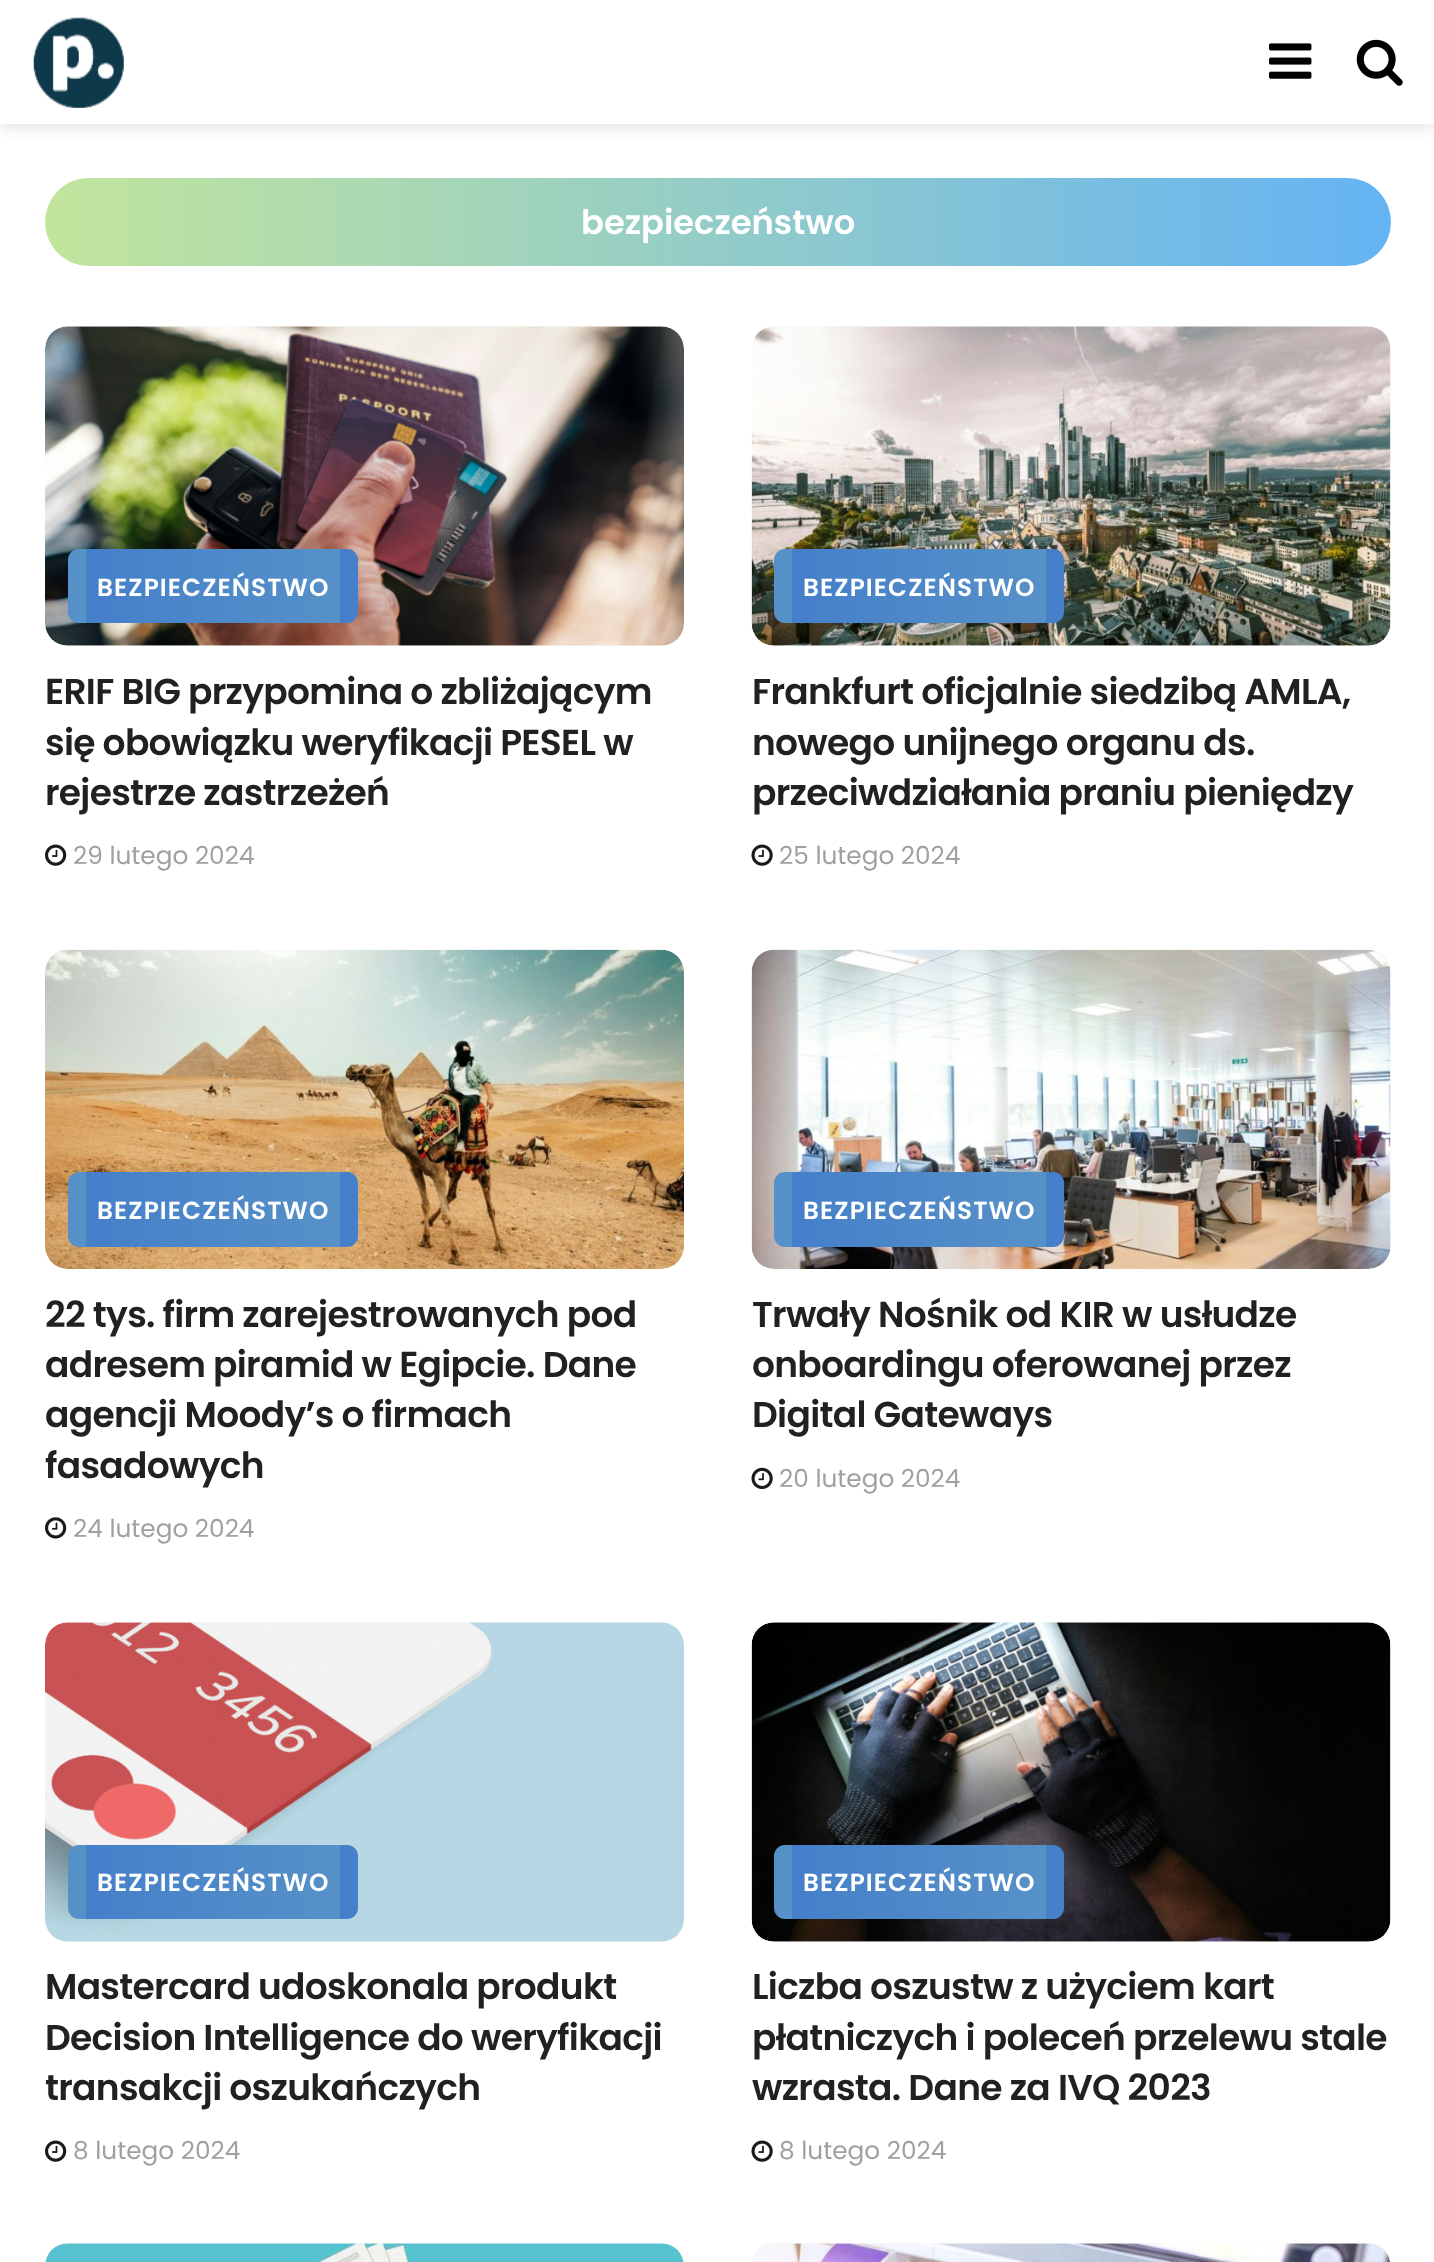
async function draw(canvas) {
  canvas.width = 1434;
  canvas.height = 2262;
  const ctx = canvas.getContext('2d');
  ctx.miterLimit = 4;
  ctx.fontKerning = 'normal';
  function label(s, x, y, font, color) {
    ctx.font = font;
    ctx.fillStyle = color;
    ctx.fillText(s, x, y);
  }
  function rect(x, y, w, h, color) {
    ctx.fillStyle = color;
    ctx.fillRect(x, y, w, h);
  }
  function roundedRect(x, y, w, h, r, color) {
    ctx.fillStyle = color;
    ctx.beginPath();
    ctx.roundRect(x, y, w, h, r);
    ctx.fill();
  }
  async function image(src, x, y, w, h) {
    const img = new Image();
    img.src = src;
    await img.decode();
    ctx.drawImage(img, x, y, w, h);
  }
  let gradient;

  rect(0, 0, 1434, 2262, '#fff');
  ctx.fillStyle = '#0000001a';
  ctx.filter = 'blur(7px)';
  ctx.beginPath();
  ctx.rect(0, 5, 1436, 123);
  ctx.fill();
  ctx.filter = 'none';
  rect(0, 0, 1434, 124, '#fff');
  await image('assets/img1.png', 33, 17, 91, 91);
  await image('assets/img2.png', 1269, 43, 43, 36);
  await image('assets/img3.png', 1356, 39, 47, 47);
  gradient = ctx.createLinearGradient(45, 222, 1391, 222);
  gradient.addColorStop(0, '#c2e59c');
  gradient.addColorStop(1, '#64b3f4');
  ctx.fillStyle = gradient;
  ctx.beginPath();
  ctx.roundRect(45, 178, 1346, 88, 44);
  ctx.fill();
  label('bezpieczeństwo', 581, 234, '600 33.75px Poppins', '#fff');
  roundedRect(45, 326, 639, 320, 23, '#f7f7f7');
  await image('assets/img4.png', 45, 326, 639, 320);
  gradient = ctx.createLinearGradient(-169, 586, 86, 586);
  gradient.addColorStop(0, '#457fca');
  gradient.addColorStop(1, '#5691c8');
  ctx.fillStyle = gradient;
  ctx.beginPath();
  ctx.roundRect(68, 549, 18, 74, [11, 0, 0, 11]);
  ctx.fill();
  gradient = ctx.createLinearGradient(86, 586, 340, 586);
  gradient.addColorStop(0, '#457fca');
  gradient.addColorStop(1, '#5691c8');
  ctx.fillStyle = gradient;
  ctx.fillRect(86, 549, 254, 74);
  gradient = ctx.createLinearGradient(340, 586, 594, 586);
  gradient.addColorStop(0, '#457fca');
  gradient.addColorStop(1, '#5691c8');
  ctx.fillStyle = gradient;
  ctx.beginPath();
  ctx.roundRect(340, 549, 18, 74, [0, 11, 11, 0]);
  ctx.fill();
  ctx.letterSpacing = '1.1px';
  label('BEZPIECZEŃSTWO', 97, 596, '600 24.75px Poppins', '#fff');
  ctx.letterSpacing = '-0.7px';
  label('ERIF BIG przypomina o zbliżającym', 45, 704, '600 36px Poppins', '#212121');
  label('się obowiązku weryfikacji PESEL w', 45, 755, '600 36px Poppins', '#212121');
  label('rejestrze zastrzeżeń', 45, 805, '600 36px Poppins', '#212121');
  await image('assets/img5.png', 45, 844, 22, 22);
  ctx.letterSpacing = '0px';
  label('29 lutego 2024', 73, 864, '24.75px Poppins', '#a0a0a0');
  roundedRect(752, 326, 639, 320, 23, '#f7f7f7');
  await image('assets/img7.png', 755, 635, 4, 5);
  await image('assets/img6.png', 751, 326, 640, 320);
  gradient = ctx.createLinearGradient(538, 586, 792, 586);
  gradient.addColorStop(0, '#457fca');
  gradient.addColorStop(1, '#5691c8');
  ctx.fillStyle = gradient;
  ctx.beginPath();
  ctx.roundRect(774, 549, 18, 74, [11, 0, 0, 11]);
  ctx.fill();
  gradient = ctx.createLinearGradient(792, 586, 1046, 586);
  gradient.addColorStop(0, '#457fca');
  gradient.addColorStop(1, '#5691c8');
  ctx.fillStyle = gradient;
  ctx.fillRect(792, 549, 254, 74);
  gradient = ctx.createLinearGradient(1046, 586, 1301, 586);
  gradient.addColorStop(0, '#457fca');
  gradient.addColorStop(1, '#5691c8');
  ctx.fillStyle = gradient;
  ctx.beginPath();
  ctx.roundRect(1046, 549, 18, 74, [0, 11, 11, 0]);
  ctx.fill();
  ctx.letterSpacing = '1.1px';
  label('BEZPIECZEŃSTWO', 803, 596, '600 24.75px Poppins', '#fff');
  ctx.letterSpacing = '-0.7px';
  label('Frankfurt oficjalnie siedzibą AMLA,', 752, 704, '600 36px Poppins', '#212121');
  label('nowego unijnego organu ds.', 752, 755, '600 36px Poppins', '#212121');
  label('przeciwdziałania praniu pieniędzy', 752, 805, '600 36px Poppins', '#212121');
  await image('assets/img8.png', 751, 844, 22, 22);
  ctx.letterSpacing = '0px';
  label('25 lutego 2024', 779, 864, '24.75px Poppins', '#a0a0a0');
  roundedRect(45, 950, 639, 319, 23, '#f7f7f7');
  await image('assets/img10.png', 50, 951, 630, 8);
  await image('assets/img9.png', 45, 949, 639, 320);
  gradient = ctx.createLinearGradient(-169, 1209, 86, 1209);
  gradient.addColorStop(0, '#457fca');
  gradient.addColorStop(1, '#5691c8');
  ctx.fillStyle = gradient;
  ctx.beginPath();
  ctx.roundRect(68, 1172, 18, 75, [11, 0, 0, 11]);
  ctx.fill();
  gradient = ctx.createLinearGradient(86, 1209, 340, 1209);
  gradient.addColorStop(0, '#457fca');
  gradient.addColorStop(1, '#5691c8');
  ctx.fillStyle = gradient;
  ctx.fillRect(86, 1172, 254, 75);
  gradient = ctx.createLinearGradient(340, 1209, 594, 1209);
  gradient.addColorStop(0, '#457fca');
  gradient.addColorStop(1, '#5691c8');
  ctx.fillStyle = gradient;
  ctx.beginPath();
  ctx.roundRect(340, 1172, 18, 75, [0, 11, 11, 0]);
  ctx.fill();
  ctx.letterSpacing = '1.1px';
  label('BEZPIECZEŃSTWO', 97, 1219, '600 24.75px Poppins', '#fff');
  ctx.letterSpacing = '-0.7px';
  label('22 tys. firm zarejestrowanych pod', 45, 1327, '600 36px Poppins', '#212121');
  label('adresem piramid w Egipcie. Dane', 45, 1377, '600 36px Poppins', '#212121');
  label('agencji Moody’s o firmach', 45, 1427, '600 36px Poppins', '#212121');
  label('fasadowych', 45, 1478, '600 36px Poppins', '#212121');
  await image('assets/img11.png', 45, 1517, 22, 22);
  ctx.letterSpacing = '0px';
  label('24 lutego 2024', 73, 1537, '24.75px Poppins', '#a0a0a0');
  roundedRect(752, 950, 639, 319, 23, '#f7f7f7');
  await image('assets/img13.png', 752, 950, 17, 315);
  await image('assets/img12.png', 751, 949, 640, 320);
  gradient = ctx.createLinearGradient(538, 1209, 792, 1209);
  gradient.addColorStop(0, '#457fca');
  gradient.addColorStop(1, '#5691c8');
  ctx.fillStyle = gradient;
  ctx.beginPath();
  ctx.roundRect(774, 1172, 18, 75, [11, 0, 0, 11]);
  ctx.fill();
  gradient = ctx.createLinearGradient(792, 1209, 1046, 1209);
  gradient.addColorStop(0, '#457fca');
  gradient.addColorStop(1, '#5691c8');
  ctx.fillStyle = gradient;
  ctx.fillRect(792, 1172, 254, 75);
  gradient = ctx.createLinearGradient(1046, 1209, 1301, 1209);
  gradient.addColorStop(0, '#457fca');
  gradient.addColorStop(1, '#5691c8');
  ctx.fillStyle = gradient;
  ctx.beginPath();
  ctx.roundRect(1046, 1172, 18, 75, [0, 11, 11, 0]);
  ctx.fill();
  ctx.letterSpacing = '1.1px';
  label('BEZPIECZEŃSTWO', 803, 1219, '600 24.75px Poppins', '#fff');
  ctx.letterSpacing = '-0.7px';
  label('Trwały Nośnik od KIR w usłudze', 752, 1327, '600 36px Poppins', '#212121');
  label('onboardingu oferowanej przez', 752, 1377, '600 36px Poppins', '#212121');
  label('Digital Gateways', 752, 1427, '600 36px Poppins', '#212121');
  await image('assets/img14.png', 751, 1467, 22, 22);
  ctx.letterSpacing = '0px';
  label('20 lutego 2024', 779, 1487, '24.75px Poppins', '#a0a0a0');
  roundedRect(45, 1622, 639, 320, 23, '#f7f7f7');
  await image('assets/img15.png', 45, 1622, 639, 320);
  gradient = ctx.createLinearGradient(-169, 1882, 86, 1882);
  gradient.addColorStop(0, '#457fca');
  gradient.addColorStop(1, '#5691c8');
  ctx.fillStyle = gradient;
  ctx.beginPath();
  ctx.roundRect(68, 1845, 18, 74, [11, 0, 0, 11]);
  ctx.fill();
  gradient = ctx.createLinearGradient(86, 1882, 340, 1882);
  gradient.addColorStop(0, '#457fca');
  gradient.addColorStop(1, '#5691c8');
  ctx.fillStyle = gradient;
  ctx.fillRect(86, 1845, 254, 74);
  gradient = ctx.createLinearGradient(340, 1882, 594, 1882);
  gradient.addColorStop(0, '#457fca');
  gradient.addColorStop(1, '#5691c8');
  ctx.fillStyle = gradient;
  ctx.beginPath();
  ctx.roundRect(340, 1845, 18, 74, [0, 11, 11, 0]);
  ctx.fill();
  ctx.letterSpacing = '1.1px';
  label('BEZPIECZEŃSTWO', 97, 1891, '600 24.75px Poppins', '#fff');
  ctx.letterSpacing = '-0.7px';
  label('Mastercard udoskonala produkt', 45, 1999, '600 36px Poppins', '#212121');
  label('Decision Intelligence do weryfikacji', 45, 2050, '600 36px Poppins', '#212121');
  label('transakcji oszukańczych', 45, 2100, '600 36px Poppins', '#212121');
  await image('assets/img5.png', 45, 2140, 22, 22);
  ctx.letterSpacing = '0px';
  label('8 lutego 2024', 73, 2159, '24.75px Poppins', '#a0a0a0');
  roundedRect(752, 1622, 639, 320, 23, '#f7f7f7');
  await image('assets/img7.png', 755, 1931, 4, 5);
  await image('assets/img16.png', 751, 1622, 640, 320);
  gradient = ctx.createLinearGradient(538, 1882, 792, 1882);
  gradient.addColorStop(0, '#457fca');
  gradient.addColorStop(1, '#5691c8');
  ctx.fillStyle = gradient;
  ctx.beginPath();
  ctx.roundRect(774, 1845, 18, 74, [11, 0, 0, 11]);
  ctx.fill();
  gradient = ctx.createLinearGradient(792, 1882, 1046, 1882);
  gradient.addColorStop(0, '#457fca');
  gradient.addColorStop(1, '#5691c8');
  ctx.fillStyle = gradient;
  ctx.fillRect(792, 1845, 254, 74);
  gradient = ctx.createLinearGradient(1046, 1882, 1301, 1882);
  gradient.addColorStop(0, '#457fca');
  gradient.addColorStop(1, '#5691c8');
  ctx.fillStyle = gradient;
  ctx.beginPath();
  ctx.roundRect(1046, 1845, 18, 74, [0, 11, 11, 0]);
  ctx.fill();
  ctx.letterSpacing = '1.1px';
  label('BEZPIECZEŃSTWO', 803, 1891, '600 24.75px Poppins', '#fff');
  ctx.letterSpacing = '-0.7px';
  label('Liczba oszustw z użyciem kart', 752, 1999, '600 36px Poppins', '#212121');
  label('płatniczych i poleceń przelewu stale', 752, 2050, '600 36px Poppins', '#212121');
  label('wzrasta. Dane za IVQ 2023', 752, 2100, '600 36px Poppins', '#212121');
  await image('assets/img8.png', 751, 2140, 22, 22);
  ctx.letterSpacing = '0px';
  label('8 lutego 2024', 779, 2159, '24.75px Poppins', '#a0a0a0');
  roundedRect(45, 2243, 639, 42, 23, '#f7f7f7');
  await image('assets/img17.png', 45, 2243, 639, 19);
  roundedRect(752, 2243, 639, 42, 23, '#f7f7f7');
  await image('assets/img18.png', 752, 2243, 638, 19);
}

draw(document.querySelector('canvas'));
